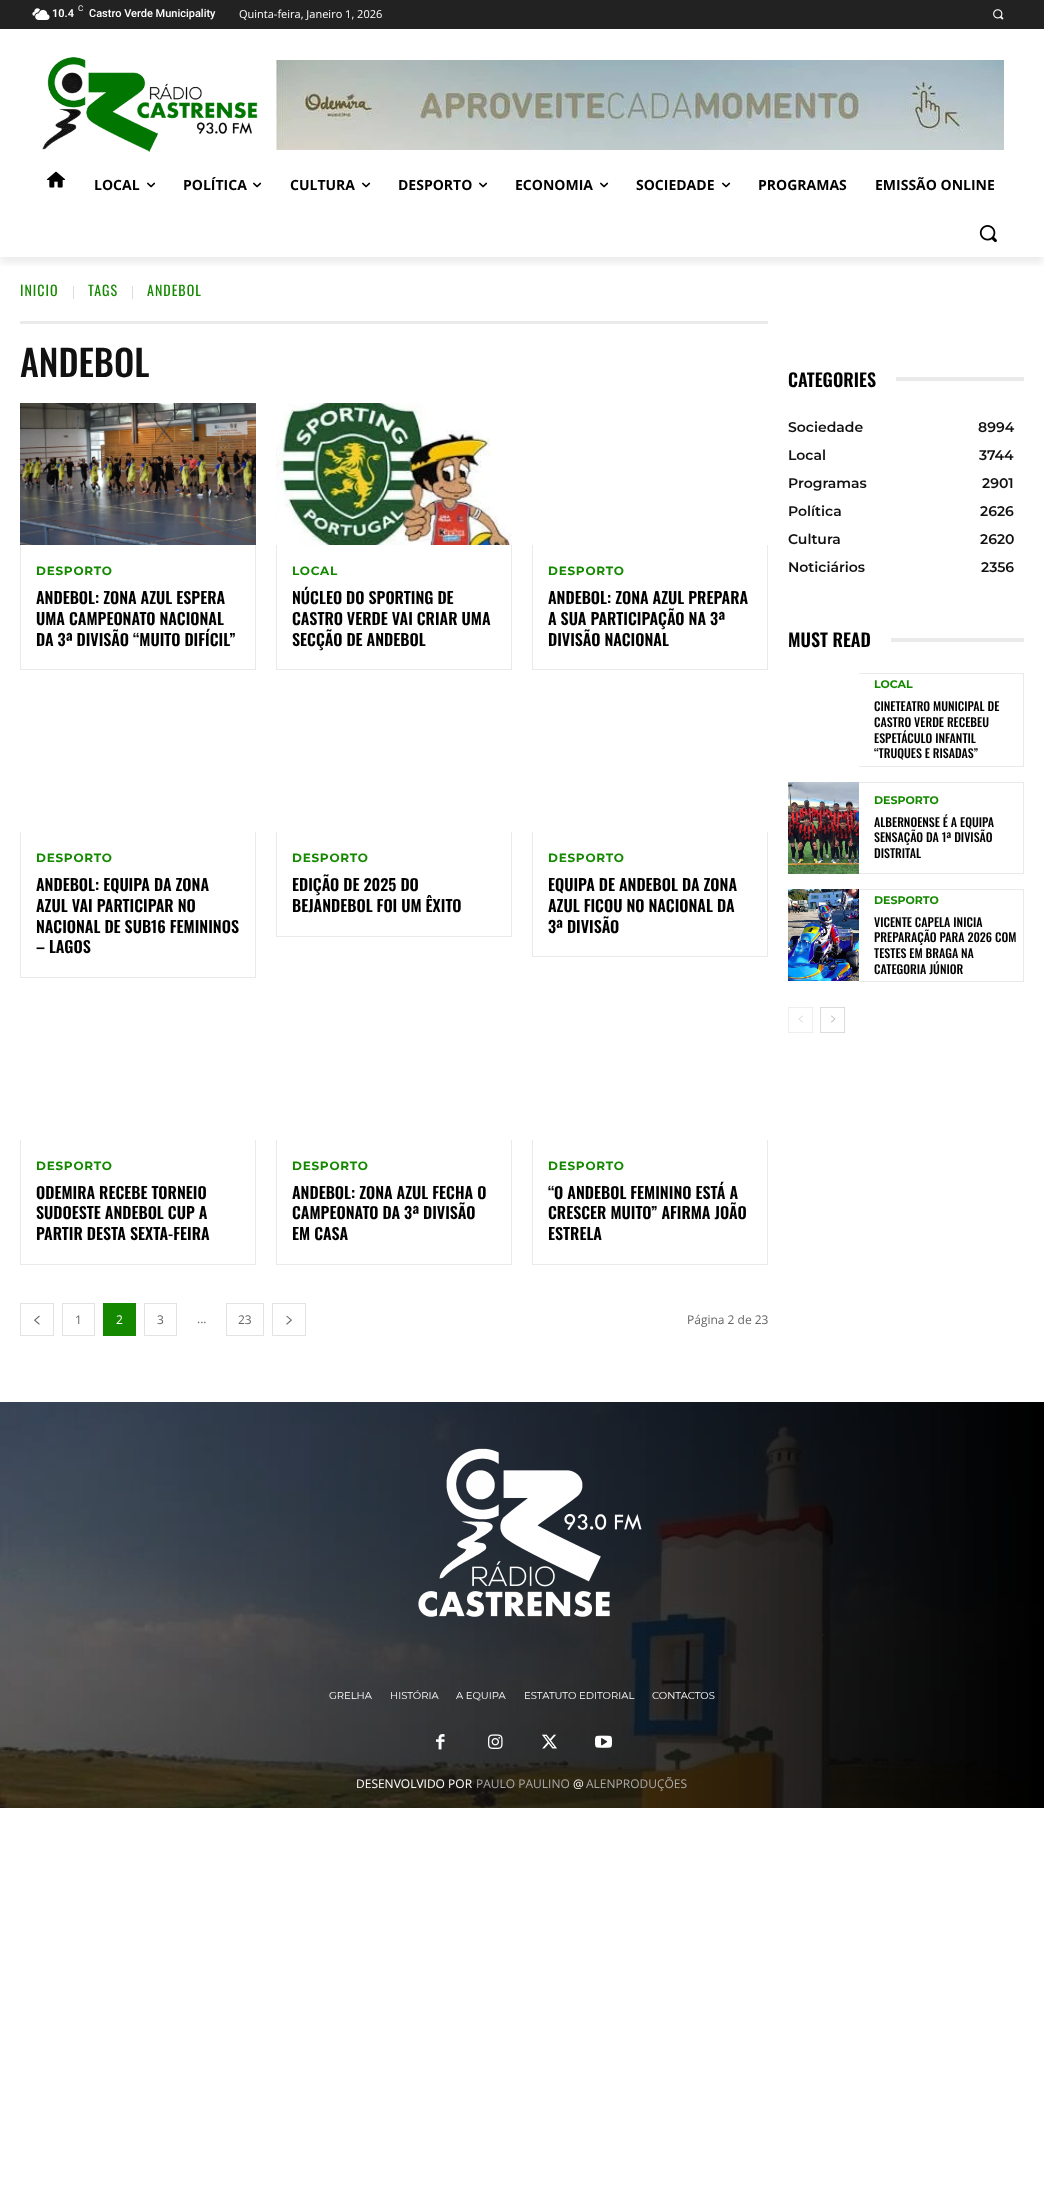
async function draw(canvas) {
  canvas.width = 1044;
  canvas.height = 2195;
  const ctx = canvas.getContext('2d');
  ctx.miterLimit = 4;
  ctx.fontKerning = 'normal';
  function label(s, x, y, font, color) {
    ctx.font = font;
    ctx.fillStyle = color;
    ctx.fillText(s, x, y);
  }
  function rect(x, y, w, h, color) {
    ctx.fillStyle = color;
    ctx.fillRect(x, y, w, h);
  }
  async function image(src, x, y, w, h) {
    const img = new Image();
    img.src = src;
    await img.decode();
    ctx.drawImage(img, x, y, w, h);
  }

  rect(0, 0, 1044, 2195, '#fff');
  rect(0, 0, 1044, 29, '#222');
  await image('assets/img1.png', 32, 8, 18, 12);
  await image('assets/img3.png', 42, 57, 216, 95);
  await image('assets/img4.png', 276, 60, 728, 90);
  ctx.save();
  ctx.beginPath();
  ctx.rect(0, 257, 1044, 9);
  ctx.clip();
  ctx.fillStyle = '#00000014';
  ctx.filter = 'blur(4px)';
  ctx.beginPath();
  ctx.rect(0, 6, 1044, 257);
  ctx.fill();
  ctx.filter = 'none';
  ctx.restore();
  label('10.4', 52, 17, '600 11px Roboto', '#fff');
  label('C', 78, 11, '8px Roboto', '#fff');
  label('Castro Verde Municipality', 89, 17, '500 11px Roboto', '#fff');
  label('Quinta-feira, Janeiro 1, 2026', 239, 18, '11px Open Sans', '#fff');
  await image('assets/img2.png', 993, 9, 11, 11);
  await image('assets/img5.png', 46, 171, 20, 17);
  label('LOCAL', 94, 190, 'bold 14px Open Sans', '#000');
  await image('assets/img6.png', 147, 182, 9, 6);
  label('POLÍTICA', 183, 190, 'bold 14px Open Sans', '#000');
  await image('assets/img6.png', 253, 182, 9, 6);
  label('CULTURA', 290, 190, 'bold 14px Open Sans', '#000');
  await image('assets/img6.png', 362, 182, 9, 6);
  label('DESPORTO', 398, 190, 'bold 14px Open Sans', '#000');
  await image('assets/img6.png', 479, 182, 9, 6);
  label('ECONOMIA', 515, 190, 'bold 14px Open Sans', '#000');
  await image('assets/img6.png', 600, 182, 9, 6);
  label('SOCIEDADE', 636, 190, 'bold 14px Open Sans', '#000');
  await image('assets/img6.png', 722, 182, 9, 6);
  label('PROGRAMAS', 758, 190, 'bold 14px Open Sans', '#000');
  label('EMISSÃO ONLINE', 875, 190, 'bold 14px Open Sans', '#000');
  await image('assets/img7.png', 979, 225, 18, 18);
  ctx.letterSpacing = '1px';
  label('INICIO', 20, 296, '14px Oswald', '#148900');
  rect(73, 286, 1, 13, '#ddd');
  label('TAGS', 88, 296, '14px Oswald', '#148900');
  rect(132, 286, 1, 13, '#ddd');
  label('ANDEBOL', 147, 296, '14px Oswald', '#148900');
  rect(20, 321, 748, 3, '#eaeaea');
  ctx.letterSpacing = '0px';
  label('ANDEBOL', 20, 377, '500 36px Oswald', '#111');
  await image('assets/img8.png', 20, 403, 236, 142);
  rect(255, 545, 1, 125, '#eaeaea');
  rect(20, 669, 236, 1, '#eaeaea');
  rect(20, 545, 1, 125, '#eaeaea');
  ctx.letterSpacing = '0.75px';
  label('DESPORTO', 36, 575, 'bold 12px Montserrat', '#148900');
  ctx.letterSpacing = '0px';
  label('ANDEBOL: ZONA AZUL ESPERA', 36, 604, '600 16px Oswald', '#000');
  label('UMA CAMPEONATO NACIONAL', 36, 625, '600 16px Oswald', '#000');
  label('DA 3ª DIVISÃO “MUITO DIFÍCIL”', 36, 646, '600 16px Oswald', '#000');
  await image('assets/img9.png', 276, 403, 236, 142);
  rect(511, 545, 1, 125, '#eaeaea');
  rect(276, 669, 236, 1, '#eaeaea');
  rect(276, 545, 1, 125, '#eaeaea');
  ctx.letterSpacing = '0.75px';
  label('LOCAL', 292, 575, 'bold 12px Montserrat', '#148900');
  ctx.letterSpacing = '0px';
  label('NÚCLEO DO SPORTING DE', 292, 604, '600 16px Oswald', '#000');
  label('CASTRO VERDE VAI CRIAR UMA', 292, 625, '600 16px Oswald', '#000');
  label('SECÇÃO DE ANDEBOL', 292, 646, '600 16px Oswald', '#000');
  rect(767, 545, 1, 125, '#eaeaea');
  rect(532, 669, 236, 1, '#eaeaea');
  rect(532, 545, 1, 125, '#eaeaea');
  ctx.letterSpacing = '0.75px';
  label('DESPORTO', 548, 575, 'bold 12px Montserrat', '#148900');
  ctx.letterSpacing = '0px';
  label('ANDEBOL: ZONA AZUL PREPARA', 548, 604, '600 16px Oswald', '#000');
  label('A SUA PARTICIPAÇÃO NA 3ª', 548, 625, '600 16px Oswald', '#000');
  label('DIVISÃO NACIONAL', 548, 646, '600 16px Oswald', '#000');
  rect(255, 832, 1, 146, '#eaeaea');
  rect(20, 977, 236, 1, '#eaeaea');
  rect(20, 832, 1, 146, '#eaeaea');
  ctx.letterSpacing = '0.75px';
  label('DESPORTO', 36, 862, 'bold 12px Montserrat', '#148900');
  ctx.letterSpacing = '0px';
  label('ANDEBOL: EQUIPA DA ZONA', 36, 891, '600 16px Oswald', '#000');
  label('AZUL VAI PARTICIPAR NO', 36, 912, '600 16px Oswald', '#000');
  label('NACIONAL DE SUB16 FEMININOS', 36, 933, '600 16px Oswald', '#000');
  label('– LAGOS', 36, 953, '600 16px Oswald', '#000');
  rect(511, 832, 1, 105, '#eaeaea');
  rect(276, 936, 236, 1, '#eaeaea');
  rect(276, 832, 1, 105, '#eaeaea');
  ctx.letterSpacing = '0.75px';
  label('DESPORTO', 292, 862, 'bold 12px Montserrat', '#148900');
  ctx.letterSpacing = '0px';
  label('EDIÇÃO DE 2025 DO', 292, 891, '600 16px Oswald', '#000');
  label('BEJANDEBOL FOI UM ÊXITO', 292, 912, '600 16px Oswald', '#000');
  rect(767, 832, 1, 125, '#eaeaea');
  rect(532, 956, 236, 1, '#eaeaea');
  rect(532, 832, 1, 125, '#eaeaea');
  ctx.letterSpacing = '0.75px';
  label('DESPORTO', 548, 862, 'bold 12px Montserrat', '#148900');
  ctx.letterSpacing = '0px';
  label('EQUIPA DE ANDEBOL DA ZONA', 548, 891, '600 16px Oswald', '#000');
  label('AZUL FICOU NO NACIONAL DA', 548, 912, '600 16px Oswald', '#000');
  label('3ª DIVISÃO', 548, 933, '600 16px Oswald', '#000');
  rect(255, 1140, 1, 125, '#eaeaea');
  rect(20, 1264, 236, 1, '#eaeaea');
  rect(20, 1140, 1, 125, '#eaeaea');
  ctx.letterSpacing = '0.75px';
  label('DESPORTO', 36, 1170, 'bold 12px Montserrat', '#148900');
  ctx.letterSpacing = '0px';
  label('ODEMIRA RECEBE TORNEIO', 36, 1199, '600 16px Oswald', '#000');
  label('SUDOESTE ANDEBOL CUP A', 36, 1219, '600 16px Oswald', '#000');
  label('PARTIR DESTA SEXTA-FEIRA', 36, 1240, '600 16px Oswald', '#000');
  rect(511, 1140, 1, 125, '#eaeaea');
  rect(276, 1264, 236, 1, '#eaeaea');
  rect(276, 1140, 1, 125, '#eaeaea');
  ctx.letterSpacing = '0.75px';
  label('DESPORTO', 292, 1170, 'bold 12px Montserrat', '#148900');
  ctx.letterSpacing = '0px';
  label('ANDEBOL: ZONA AZUL FECHA O', 292, 1199, '600 16px Oswald', '#000');
  label('CAMPEONATO DA 3ª DIVISÃO', 292, 1219, '600 16px Oswald', '#000');
  label('EM CASA', 292, 1240, '600 16px Oswald', '#000');
  rect(767, 1140, 1, 125, '#eaeaea');
  rect(532, 1264, 236, 1, '#eaeaea');
  rect(532, 1140, 1, 125, '#eaeaea');
  ctx.letterSpacing = '0.75px';
  label('DESPORTO', 548, 1170, 'bold 12px Montserrat', '#148900');
  ctx.letterSpacing = '0px';
  label('“O ANDEBOL FEMININO ESTÁ A', 548, 1199, '600 16px Oswald', '#000');
  label('CRESCER MUITO” AFIRMA JOÃO', 548, 1219, '600 16px Oswald', '#000');
  label('ESTRELA', 548, 1240, '600 16px Oswald', '#000');
  ctx.strokeStyle = '#e3e3e3';
  ctx.strokeRect(20.5, 1303.5, 33, 32);
  await image('assets/img10.png', 34, 1315, 6, 10);
  ctx.strokeRect(62.5, 1303.5, 32, 32);
  label('1', 75, 1324, '12px Open Sans', '#666');
  rect(103, 1303, 33, 33, '#148900');
  label('2', 116, 1324, '12px Open Sans', '#fff');
  ctx.strokeRect(144.5, 1303.5, 32, 32);
  label('3', 157, 1324, '12px Open Sans', '#666');
  label('...', 197, 1323, '12px Open Sans', '#666');
  ctx.strokeRect(226.5, 1303.5, 37, 32);
  label('23', 238, 1324, '12px Open Sans', '#666');
  ctx.strokeRect(272.5, 1303.5, 33, 32);
  await image('assets/img11.png', 286, 1315, 6, 10);
  label('Página 2 de 23', 687, 1324, '12px Open Sans', '#666');
  label('CATEGORIES', 788, 387, '600 18px Oswald', '#000');
  rect(896, 377, 128, 4, '#eaeaea');
  label('Sociedade', 788, 432, '600 14px Montserrat', '#111');
  label('8994', 978, 432, '600 14px Montserrat', '#111');
  label('Local', 788, 460, '600 14px Montserrat', '#111');
  label('3744', 979, 460, '600 14px Montserrat', '#111');
  label('Programas', 788, 488, '600 14px Montserrat', '#111');
  label('2901', 982, 488, '600 14px Montserrat', '#111');
  label('Política', 788, 516, '600 14px Montserrat', '#111');
  label('2626', 980, 516, '600 14px Montserrat', '#111');
  label('Cultura', 788, 544, '600 14px Montserrat', '#111');
  label('2620', 980, 544, '600 14px Montserrat', '#111');
  label('Noticiários', 788, 572, '600 14px Montserrat', '#111');
  label('2356', 981, 572, '600 14px Montserrat', '#111');
  label('MUST READ', 788, 647, '600 18px Oswald', '#000');
  rect(891, 638, 133, 4, '#eaeaea');
  rect(859, 673, 165, 1, '#eaeaea');
  rect(1023, 673, 1, 94, '#eaeaea');
  rect(859, 766, 165, 1, '#eaeaea');
  label('LOCAL', 874, 688, 'bold 11px Montserrat', '#148900');
  label('CINETEATRO MUNICIPAL DE', 874, 711, '500 12px Oswald', '#000');
  label('CASTRO VERDE RECEBEU', 874, 727, '500 12px Oswald', '#000');
  label('ESPETÁCULO INFANTIL', 874, 743, '500 12px Oswald', '#000');
  label('“TRUQUES E RISADAS”', 874, 758, '500 12px Oswald', '#000');
  await image('assets/img12.png', 788, 782, 71, 92);
  rect(859, 782, 165, 1, '#eaeaea');
  rect(1023, 782, 1, 92, '#eaeaea');
  rect(859, 873, 165, 1, '#eaeaea');
  label('DESPORTO', 874, 804, 'bold 11px Montserrat', '#148900');
  label('ALBERNOENSE É A EQUIPA', 874, 827, '500 12px Oswald', '#000');
  label('SENSAÇÃO DA 1ª DIVISÃO', 874, 842, '500 12px Oswald', '#000');
  label('DISTRITAL', 874, 858, '500 12px Oswald', '#000');
  await image('assets/img13.png', 788, 889, 71, 92);
  rect(859, 889, 165, 1, '#eaeaea');
  rect(1023, 889, 1, 93, '#eaeaea');
  rect(859, 981, 165, 1, '#eaeaea');
  label('DESPORTO', 874, 904, 'bold 11px Montserrat', '#148900');
  label('VICENTE CAPELA INICIA', 874, 927, '500 12px Oswald', '#000');
  label('PREPARAÇÃO PARA 2026 COM', 874, 942, '500 12px Oswald', '#000');
  label('TESTES EM BRAGA NA', 874, 958, '500 12px Oswald', '#000');
  label('CATEGORIA JÚNIOR', 874, 974, '500 12px Oswald', '#000');
  ctx.strokeStyle = '#eee';
  ctx.strokeRect(788.5, 1007.5, 24, 25);
  await image('assets/img14.png', 798, 1015, 5, 8);
  ctx.strokeStyle = '#dcdcdc';
  ctx.strokeRect(820.5, 1007.5, 24, 25);
  await image('assets/img15.png', 831, 1015, 5, 8);
  await image('assets/img16.png', 0, 1402, 1044, 406);
  await image('assets/img17.png', 418, 1448, 224, 169);
  label('GRELHA', 329, 1699, '10px Montserrat', '#fff');
  label('HISTÓRIA', 390, 1699, '10px Montserrat', '#fff');
  label('A EQUIPA', 456, 1699, '10px Montserrat', '#fff');
  label('ESTATUTO EDITORIAL', 524, 1699, '10px Montserrat', '#fff');
  label('CONTACTOS', 652, 1699, '10px Montserrat', '#fff');
  await image('assets/img18.png', 436, 1734, 9, 16);
  await image('assets/img19.png', 488, 1734, 15, 15);
  await image('assets/img20.png', 542, 1734, 15, 15);
  await image('assets/img21.png', 595, 1735, 17, 13);
  label('DESENVOLVIDO POR', 356, 1788, '12px Open Sans', '#fff');
  label('PAULO PAULINO', 476, 1788, '12px Open Sans', '#aaa');
  label('@', 573, 1788, '12px Open Sans', '#fff');
  label('ALENPRODUÇÕES', 586, 1788, '12px Open Sans', '#aaa');
}

draw(document.querySelector('canvas'));
